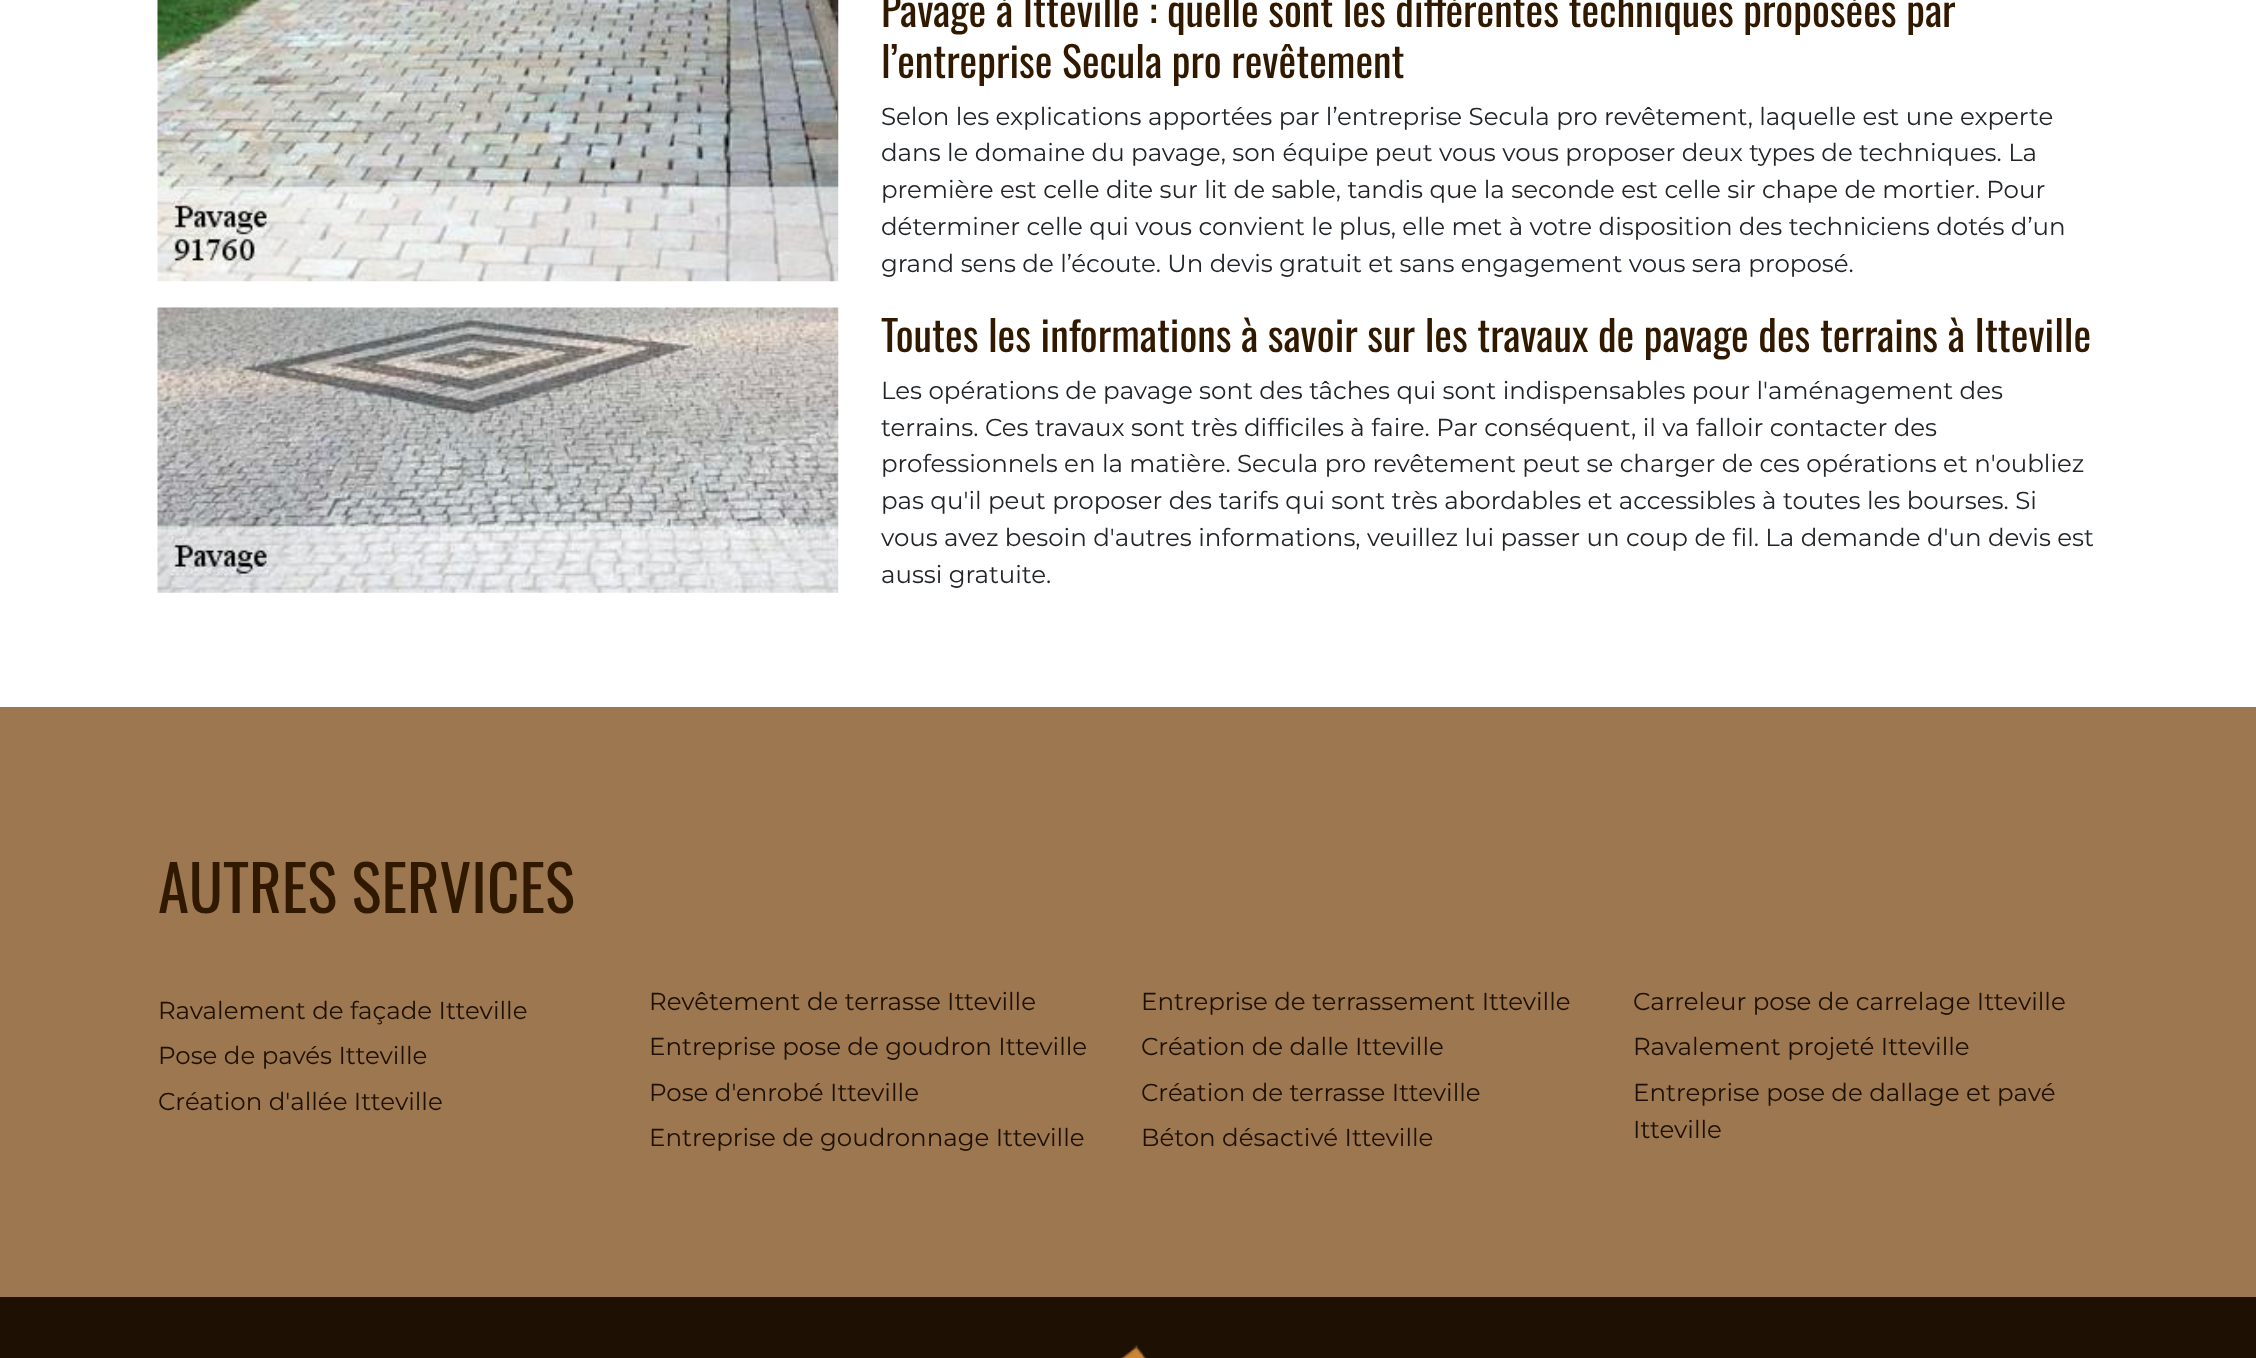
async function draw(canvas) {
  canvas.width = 2256;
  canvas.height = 1358;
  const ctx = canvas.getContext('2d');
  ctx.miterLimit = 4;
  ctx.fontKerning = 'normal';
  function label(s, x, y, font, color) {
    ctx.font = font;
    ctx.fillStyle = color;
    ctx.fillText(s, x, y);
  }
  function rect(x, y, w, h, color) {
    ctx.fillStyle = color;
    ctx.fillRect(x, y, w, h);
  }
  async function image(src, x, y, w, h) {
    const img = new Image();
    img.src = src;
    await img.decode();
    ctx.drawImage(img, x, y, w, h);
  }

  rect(0, 0, 2256, 1358, '#fff');
  await image('assets/img1.png', 157, 0, 682, 282);
  label('Pavage à Itteville : quelle sont les différentes techniques proposées par', 881, 27, '42px Oswald', '#311900');
  label('l’entreprise Secula pro revêtement', 881, 78, '42px Oswald', '#311900');
  label('Selon les explications apportées par l’entreprise Secula pro revêtement, laquelle est une experte', 881, 125, '24.5px Montserrat', '#212529');
  label('dans le domaine du pavage, son équipe peut vous vous proposer deux types de techniques. La', 881, 161, '24.5px Montserrat', '#212529');
  label('première est celle dite sur lit de sable, tandis que la seconde est celle sir chape de mortier. Pour', 881, 198, '24.5px Montserrat', '#212529');
  label('déterminer celle qui vous convient le plus, elle met à votre disposition des techniciens dotés d’un', 881, 235, '24.5px Montserrat', '#212529');
  label('grand sens de l’écoute. Un devis gratuit et sans engagement vous sera proposé.', 881, 272, '24.5px Montserrat', '#212529');
  await image('assets/img2.png', 157, 307, 682, 286);
  label('Toutes les informations à savoir sur les travaux de pavage des terrains à Itteville', 881, 352, '42px Oswald', '#311900');
  label('Les opérations de pavage sont des tâches qui sont indispensables pour l\'aménagement des', 881, 399, '24.5px Montserrat', '#212529');
  label('terrains. Ces travaux sont très difficiles à faire. Par conséquent, il va falloir contacter des', 881, 436, '24.5px Montserrat', '#212529');
  label('professionnels en la matière. Secula pro revêtement peut se charger de ces opérations et n\'oubliez', 881, 472, '24.5px Montserrat', '#212529');
  label('pas qu\'il peut proposer des tarifs qui sont très abordables et accessibles à toutes les bourses. Si', 881, 509, '24.5px Montserrat', '#212529');
  label('vous avez besoin d\'autres informations, veuillez lui passer un coup de fil. La demande d\'un devis est', 881, 546, '24.5px Montserrat', '#212529');
  label('aussi gratuite.', 881, 583, '24.5px Montserrat', '#212529');
  rect(0, 707, 2256, 590, '#9c7750');
  label('AUTRES SERVICES', 158, 913, '63px Oswald', '#311900');
  label('Ravalement de façade Itteville', 158, 1019, '24.5px Montserrat', '#1e1002');
  label('Revêtement de terrasse Itteville', 649, 1010, '24.5px Montserrat', '#1e1002');
  label('Entreprise de terrassement Itteville', 1141, 1010, '24.5px Montserrat', '#1e1002');
  label('Carreleur pose de carrelage Itteville', 1633, 1010, '24.5px Montserrat', '#1e1002');
  label('Pose de pavés Itteville', 158, 1064, '24.5px Montserrat', '#1e1002');
  label('Entreprise pose de goudron Itteville', 649, 1055, '24.5px Montserrat', '#1e1002');
  label('Création de dalle Itteville', 1141, 1055, '24.5px Montserrat', '#1e1002');
  label('Ravalement projeté Itteville', 1633, 1055, '24.5px Montserrat', '#1e1002');
  label('Création d\'allée Itteville', 158, 1110, '24.5px Montserrat', '#1e1002');
  label('Pose d\'enrobé Itteville', 649, 1101, '24.5px Montserrat', '#1e1002');
  label('Création de terrasse Itteville', 1141, 1101, '24.5px Montserrat', '#1e1002');
  label('Entreprise pose de dallage et pavé', 1633, 1101, '24.5px Montserrat', '#1e1002');
  label('Itteville', 1633, 1138, '24.5px Montserrat', '#1e1002');
  label('Entreprise de goudronnage Itteville', 649, 1146, '24.5px Montserrat', '#1e1002');
  label('Béton désactivé Itteville', 1141, 1146, '24.5px Montserrat', '#1e1002');
  rect(0, 1297, 2256, 61, '#1e1002');
  await image('assets/img3.png', 1120, 1345, 27, 13);
}

draw(document.querySelector('canvas'));
